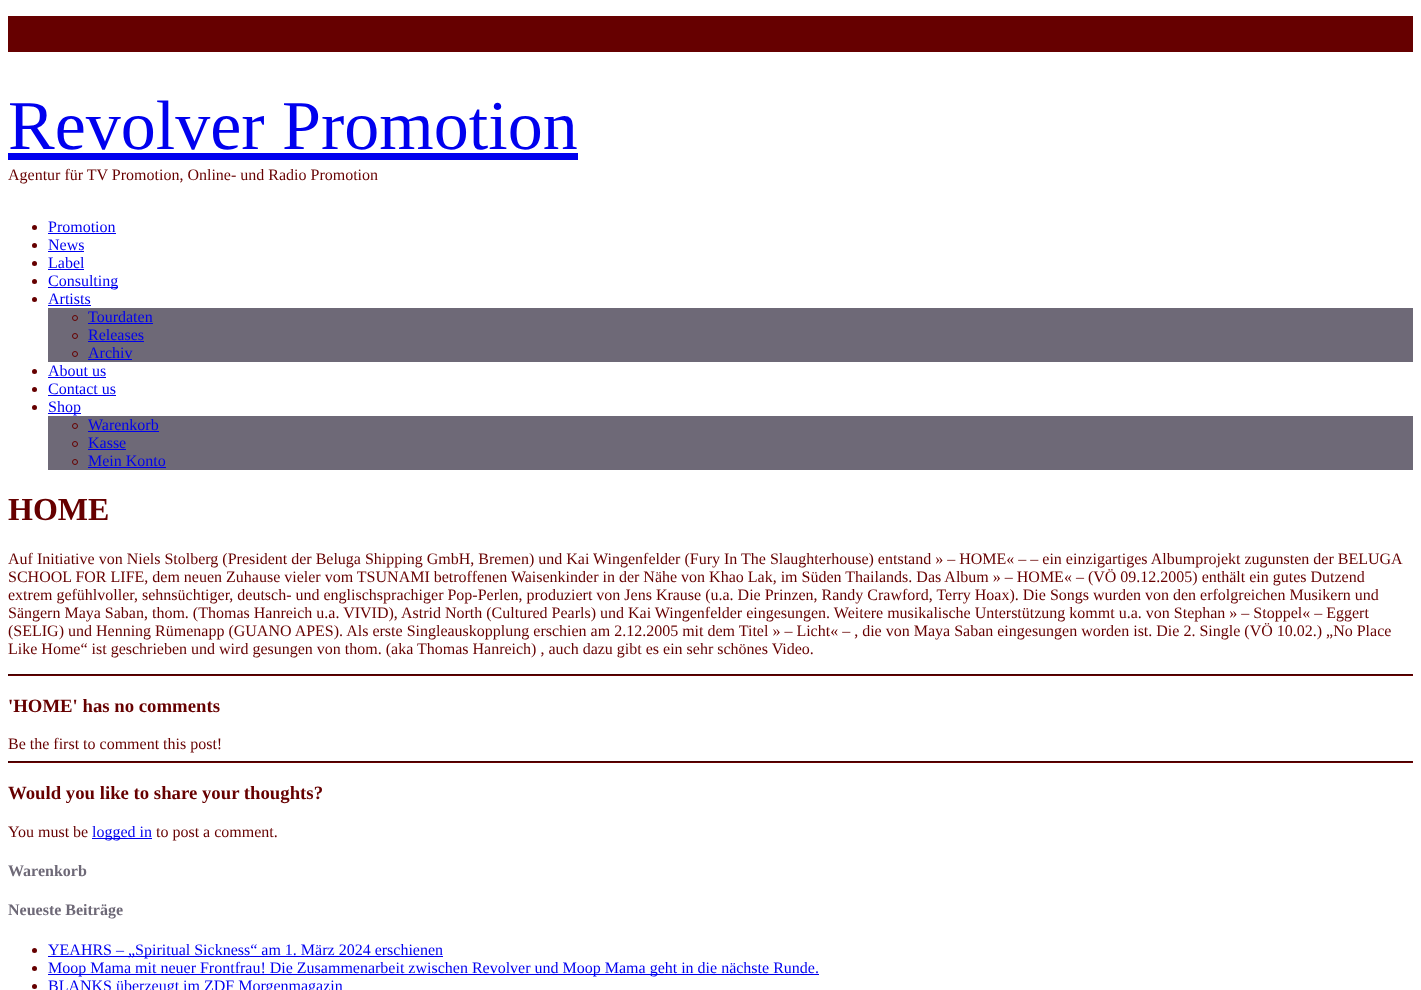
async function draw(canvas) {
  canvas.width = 1421;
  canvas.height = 990;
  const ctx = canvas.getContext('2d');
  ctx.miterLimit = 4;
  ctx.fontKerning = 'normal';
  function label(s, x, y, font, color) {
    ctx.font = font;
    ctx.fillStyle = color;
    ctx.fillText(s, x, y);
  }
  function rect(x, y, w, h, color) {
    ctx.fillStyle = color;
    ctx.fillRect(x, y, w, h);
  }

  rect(0, 0, 1421, 990, '#fff');
  rect(8, 16, 1405, 36, '#600');
  label('Revolver Promotion', 8, 149, '70px Liberation Serif', '#00e');
  rect(8, 153, 570, 7, '#00e');
  label('Agentur für TV Promotion, Online- und Radio Promotion', 8, 180, '16px Liberation Serif', '#600');
  ctx.beginPath();
  ctx.arc(34.5, 227.5, 2.5, 0, 2 * Math.PI);
  ctx.fill();
  label('Promotion', 48, 232, '16px Liberation Serif', '#00e');
  rect(48, 233, 68, 1, '#00e');
  ctx.fillStyle = '#600';
  ctx.beginPath();
  ctx.arc(34.5, 245.5, 2.5, 0, 2 * Math.PI);
  ctx.fill();
  label('News', 48, 250, '16px Liberation Serif', '#00e');
  rect(48, 251, 36, 1, '#00e');
  ctx.fillStyle = '#600';
  ctx.beginPath();
  ctx.arc(34.5, 263.5, 2.5, 0, 2 * Math.PI);
  ctx.fill();
  label('Label', 48, 268, '16px Liberation Serif', '#00e');
  rect(48, 269, 36, 1, '#00e');
  ctx.fillStyle = '#600';
  ctx.beginPath();
  ctx.arc(34.5, 281.5, 2.5, 0, 2 * Math.PI);
  ctx.fill();
  rect(48, 287, 70, 1, '#00e');
  label('Consulting', 48, 286, '16px Liberation Serif', '#00e');
  ctx.fillStyle = '#600';
  ctx.beginPath();
  ctx.arc(34.5, 299.5, 2.5, 0, 2 * Math.PI);
  ctx.fill();
  label('Artists', 48, 304, '16px Liberation Serif', '#00e');
  rect(48, 305, 43, 1, '#00e');
  rect(48, 308, 1365, 54, '#6e6977');
  ctx.beginPath();
  ctx.arc(75, 318, 2.5, 0, 2 * Math.PI);
  ctx.strokeStyle = '#600';
  ctx.stroke();
  label('Tourdaten', 88, 322, '16px Liberation Serif', '#00e');
  rect(88, 323, 65, 1, '#00e');
  ctx.beginPath();
  ctx.arc(75, 336, 2.5, 0, 2 * Math.PI);
  ctx.stroke();
  label('Releases', 88, 340, '16px Liberation Serif', '#00e');
  rect(88, 341, 56, 1, '#00e');
  ctx.beginPath();
  ctx.arc(75, 354, 2.5, 0, 2 * Math.PI);
  ctx.stroke();
  label('Archiv', 88, 358, '16px Liberation Serif', '#00e');
  rect(88, 359, 44, 1, '#00e');
  ctx.fillStyle = '#600';
  ctx.beginPath();
  ctx.arc(34.5, 371.5, 2.5, 0, 2 * Math.PI);
  ctx.fill();
  label('About us', 48, 376, '16px Liberation Serif', '#00e');
  rect(48, 377, 58, 1, '#00e');
  ctx.fillStyle = '#600';
  ctx.beginPath();
  ctx.arc(34.5, 389.5, 2.5, 0, 2 * Math.PI);
  ctx.fill();
  label('Contact us', 48, 394, '16px Liberation Serif', '#00e');
  rect(48, 395, 68, 1, '#00e');
  ctx.fillStyle = '#600';
  ctx.beginPath();
  ctx.arc(34.5, 407.5, 2.5, 0, 2 * Math.PI);
  ctx.fill();
  rect(48, 413, 33, 1, '#00e');
  label('Shop', 48, 412, '16px Liberation Serif', '#00e');
  rect(48, 416, 1365, 54, '#6e6977');
  ctx.beginPath();
  ctx.arc(75, 426, 2.5, 0, 2 * Math.PI);
  ctx.stroke();
  label('Warenkorb', 88, 430, '16px Liberation Serif', '#00e');
  rect(88, 431, 71, 1, '#00e');
  ctx.beginPath();
  ctx.arc(75, 444, 2.5, 0, 2 * Math.PI);
  ctx.stroke();
  label('Kasse', 88, 448, '16px Liberation Serif', '#00e');
  rect(88, 449, 38, 1, '#00e');
  ctx.beginPath();
  ctx.arc(75, 462, 2.5, 0, 2 * Math.PI);
  ctx.stroke();
  label('Mein Konto', 88, 466, '16px Liberation Serif', '#00e');
  rect(88, 467, 78, 1, '#00e');
  label('HOME', 8, 520, 'bold 32px Liberation Serif', '#600');
  label('Auf Initiative von Niels Stolberg (President der Beluga Shipping GmbH, Bremen) und Kai Wingenfelder (Fury In The Slaughterhouse) entstand » – HOME« – – ein einzigartiges Albumprojekt zugunsten der BELUGA', 8, 564, '16px Liberation Serif', '#600');
  label('SCHOOL FOR LIFE, dem neuen Zuhause vieler vom TSUNAMI betroffenen Waisenkinder in der Nähe von Khao Lak, im Süden Thailands. Das Album » – HOME« – (VÖ 09.12.2005) enthält ein gutes Dutzend', 8, 582, '16px Liberation Serif', '#600');
  label('extrem gefühlvoller, sehnsüchtiger, deutsch- und englischsprachiger Pop-Perlen, produziert von Jens Krause (u.a. Die Prinzen, Randy Crawford, Terry Hoax). Die Songs wurden von den erfolgreichen Musikern und', 8, 600, '16px Liberation Serif', '#600');
  label('Sängern Maya Saban, thom. (Thomas Hanreich u.a. VIVID), Astrid North (Cultured Pearls) und Kai Wingenfelder eingesungen. Weitere musikalische Unterstützung kommt u.a. von Stephan » – Stoppel« – Eggert', 8, 618, '16px Liberation Serif', '#600');
  label('(SELIG) und Henning Rümenapp (GUANO APES). Als erste Singleauskopplung erschien am 2.12.2005 mit dem Titel » – Licht« – , die von Maya Saban eingesungen worden ist. Die 2. Single (VÖ 10.02.) „No Place', 8, 636, '16px Liberation Serif', '#600');
  label('Like Home“ ist geschrieben und wird gesungen von thom. (aka Thomas Hanreich) , auch dazu gibt es ein sehr schönes Video.', 8, 654, '16px Liberation Serif', '#600');
  rect(8, 674, 1405, 1, '#400');
  rect(1412, 674, 1, 2, '#600');
  rect(8, 675, 1405, 1, '#600');
  rect(8, 674, 1, 2, '#400');
  label('\'HOME\' has no comments', 8, 712, 'bold 18.75px Liberation Serif', '#600');
  label('Be the first to comment this post!', 8, 749, '16px Liberation Serif', '#600');
  rect(8, 761, 1405, 1, '#400');
  rect(1412, 761, 1, 2, '#600');
  rect(8, 762, 1405, 1, '#600');
  rect(8, 761, 1, 2, '#400');
  label('Would you like to share your thoughts?', 8, 799, 'bold 18.75px Liberation Serif', '#600');
  label('You must be', 8, 837, '16px Liberation Serif', '#600');
  rect(92, 838, 60, 1, '#00e');
  label('logged in', 92, 837, '16px Liberation Serif', '#00e');
  label('to post a comment.', 156, 837, '16px Liberation Serif', '#600');
  label('Warenkorb', 8, 876, 'bold 16px Liberation Serif', '#6e6977');
  label('Neueste Beiträge', 8, 915, 'bold 16px Liberation Serif', '#6e6977');
  ctx.fillStyle = '#600';
  ctx.beginPath();
  ctx.arc(34.5, 950.5, 2.5, 0, 2 * Math.PI);
  ctx.fill();
  rect(48, 956, 395, 1, '#00e');
  label('YEAHRS – „Spiritual Sickness“ am 1. März 2024 erschienen', 48, 955, '16px Liberation Serif', '#00e');
  ctx.fillStyle = '#600';
  ctx.beginPath();
  ctx.arc(34.5, 968.5, 2.5, 0, 2 * Math.PI);
  ctx.fill();
  rect(48, 974, 771, 1, '#00e');
  label('Moop Mama mit neuer Frontfrau! Die Zusammenarbeit zwischen Revolver und Moop Mama geht in die nächste Runde.', 48, 973, '16px Liberation Serif', '#00e');
  ctx.fillStyle = '#600';
  ctx.beginPath();
  ctx.arc(34.5, 986.5, 2.5, 0, 2 * Math.PI);
  ctx.fill();
  label('BLANKS überzeugt im ZDF Morgenmagazin', 48, 991, '16px Liberation Serif', '#00e');
}

draw(document.querySelector('canvas'));
